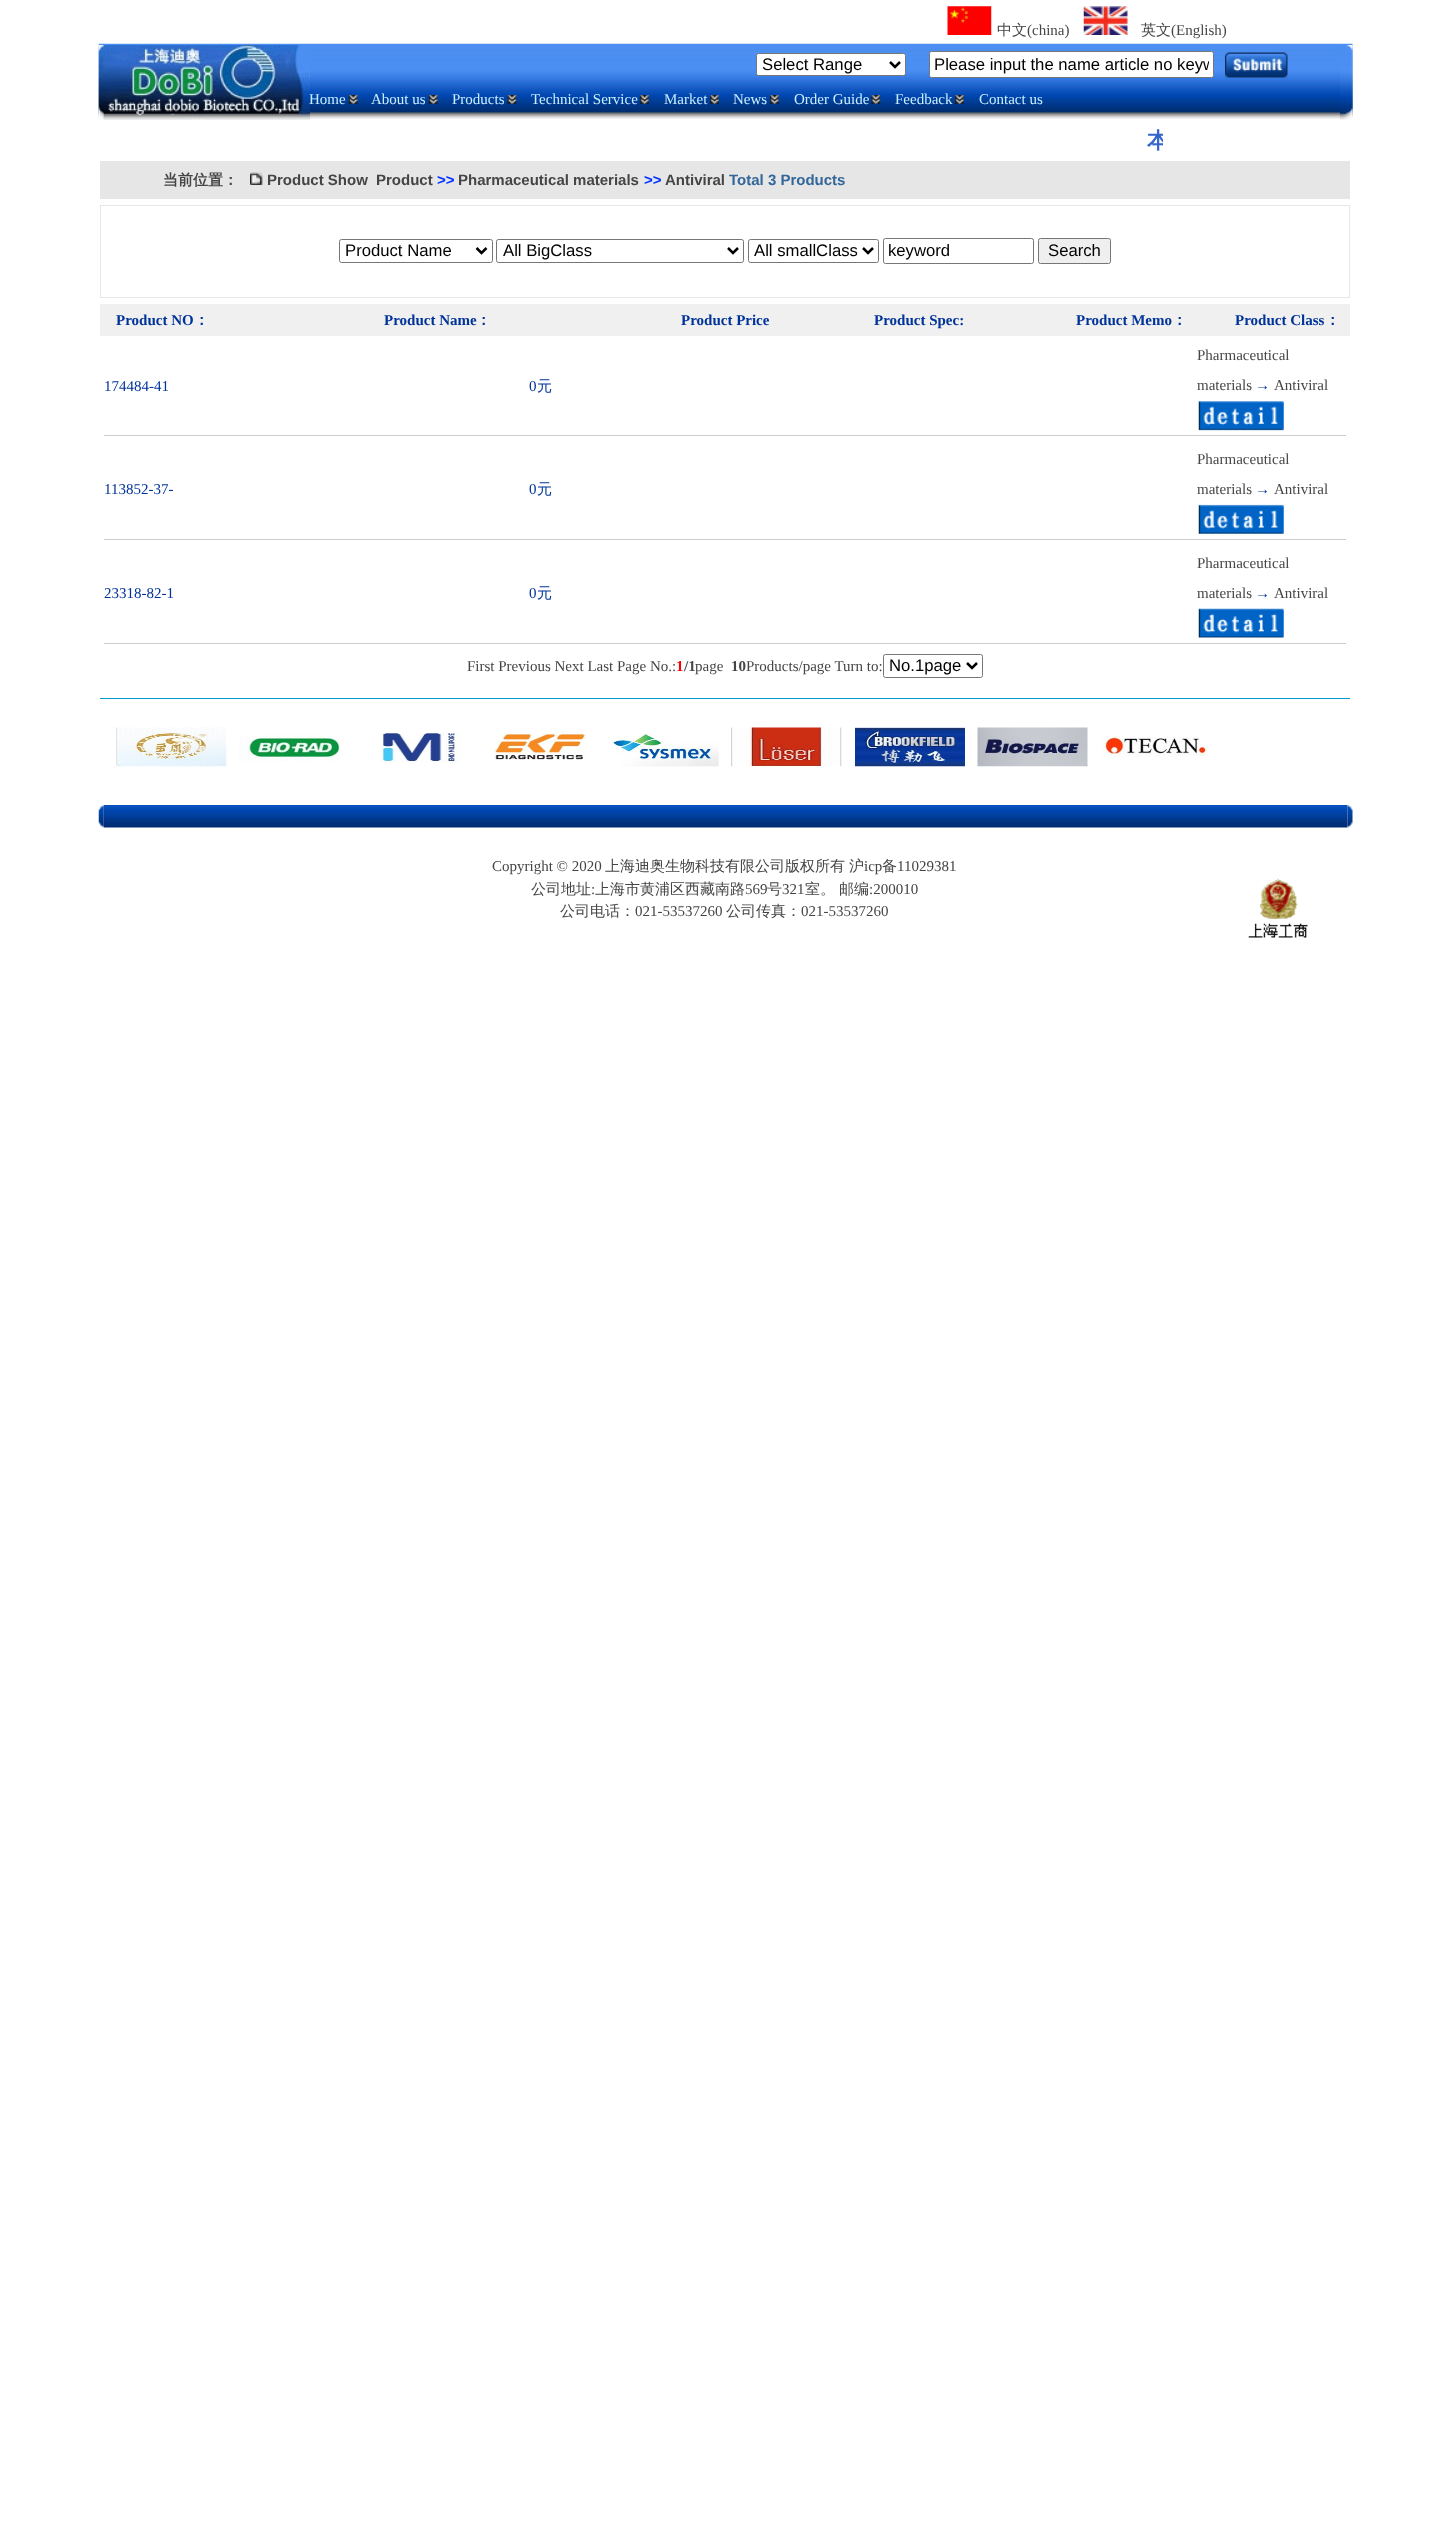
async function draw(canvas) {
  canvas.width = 1450;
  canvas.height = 2535;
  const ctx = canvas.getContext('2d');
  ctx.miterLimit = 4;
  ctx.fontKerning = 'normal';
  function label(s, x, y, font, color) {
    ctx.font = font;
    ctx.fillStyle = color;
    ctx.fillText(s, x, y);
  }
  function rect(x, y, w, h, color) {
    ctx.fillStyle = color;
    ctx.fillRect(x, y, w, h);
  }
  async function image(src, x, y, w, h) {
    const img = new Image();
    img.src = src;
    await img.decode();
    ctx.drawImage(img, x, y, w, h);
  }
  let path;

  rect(0, 0, 1450, 2535, '#fff');
  await image('assets/img1.png', 947, 6, 45, 29);
  label('中文', 997, 35, '500 15px WenQuanYi Zen Hei', '#454545');
  label('(china)', 1027, 35, '15px Liberation Serif', '#454545');
  await image('assets/img2.png', 1083, 6, 45, 29);
  label('英文', 1141, 35, '500 15px WenQuanYi Zen Hei', '#454545');
  label('(English)', 1171, 35, '15px Liberation Serif', '#454545');
  await image('assets/img3.png', 98, 43, 1255, 76);
  await image('assets/img4.png', 98, 45, 212, 75);
  ctx.fillStyle = '#fff';
  ctx.beginPath();
  ctx.roundRect(756.5, 53.5, 149, 22, 2);
  ctx.fill();
  ctx.strokeStyle = '#767676';
  ctx.stroke();
  path = new Path2D('M890 62L895 67L900 62');
  ctx.strokeStyle = '#000';
  ctx.lineWidth = 2.5;
  ctx.stroke(path);
  label('Select Range', 762, 70, '16.7px Liberation Sans', '#000');
  ctx.fillStyle = '#fff';
  ctx.beginPath();
  ctx.roundRect(929.5, 51.5, 284, 26, 2);
  ctx.fill();
  ctx.strokeStyle = '#767676';
  ctx.lineWidth = 1;
  ctx.stroke();
  ctx.save();
  ctx.beginPath();
  ctx.rect(934, 55, 275, 19);
  ctx.clip();
  label('Please input the name article no keyw', 934, 70, '16.7px Liberation Sans', '#000');
  ctx.restore();
  await image('assets/img5.png', 1225, 52, 63, 26);
  label('Home', 309, 104, '15px Liberation Serif', '#c8efff');
  await image('assets/img6.png', 348, 95, 10, 9);
  label('About us', 371, 104, '15px Liberation Serif', '#c8efff');
  await image('assets/img6.png', 428, 95, 10, 9);
  label('Products', 452, 104, '15px Liberation Serif', '#c8efff');
  await image('assets/img7.png', 507, 95, 10, 9);
  label('Technical Service', 531, 104, '15px Liberation Serif', '#c8efff');
  await image('assets/img8.png', 639, 95, 10, 9);
  label('Market', 664, 104, '15px Liberation Serif', '#c8efff');
  await image('assets/img8.png', 709, 95, 10, 9);
  label('News', 733, 104, '15px Liberation Serif', '#c8efff');
  await image('assets/img8.png', 769, 95, 10, 9);
  label('Order Guide', 794, 104, '15px Liberation Serif', '#c8efff');
  await image('assets/img9.png', 871, 95, 10, 9);
  label('Feedback', 895, 104, '15px Liberation Serif', '#c8efff');
  await image('assets/img10.png', 954, 95, 10, 9);
  label('Contact us', 979, 104, '15px Liberation Serif', '#c8efff');
  await image('assets/img11.png', 1340, 45, 13, 75);
  ctx.save();
  ctx.beginPath();
  ctx.rect(288, 125, 875, 30);
  ctx.clip();
  label('本', 1147, 148, 'bold 22px WenQuanYi Zen Hei', '#3266cb');
  ctx.restore();
  rect(100, 161, 1250, 38, '#e6e6e6');
  label('当前位置：', 163, 185, 'bold 15px WenQuanYi Zen Hei', '#454545');
  await image('assets/img12.png', 250, 172, 13, 13);
  label('Product Show', 267, 185, 'bold 15px Liberation Sans', '#454545');
  label('Product', 376, 185, 'bold 15px Liberation Sans', '#454545');
  label('>>', 437, 185, 'bold 15px Liberation Sans', '#03f');
  label('Pharmaceutical materials', 458, 185, 'bold 15px Liberation Sans', '#454545');
  label('>>', 644, 185, 'bold 15px Liberation Sans', '#03f');
  label('Antiviral', 665, 185, 'bold 15px Liberation Sans', '#454545');
  label('Total 3 Products', 729, 185, 'bold 15px Liberation Sans', '#369');
  ctx.strokeStyle = '#e6e6e6';
  ctx.strokeRect(100.5, 205.5, 1249, 92);
  ctx.beginPath();
  ctx.roundRect(339.5, 239.5, 153, 23, 2);
  ctx.strokeStyle = '#767676';
  ctx.stroke();
  path = new Path2D('M476.5 248L481.5 253L486.5 248');
  ctx.strokeStyle = '#000';
  ctx.lineWidth = 2.5;
  ctx.stroke(path);
  label('Product Name', 345, 256, '16.7px Liberation Sans', '#000');
  ctx.beginPath();
  ctx.roundRect(496.5, 239.5, 247, 23, 2);
  ctx.strokeStyle = '#767676';
  ctx.lineWidth = 1;
  ctx.stroke();
  path = new Path2D('M728 248L733 253L738 248');
  ctx.strokeStyle = '#000';
  ctx.lineWidth = 2.5;
  ctx.stroke(path);
  label('All BigClass', 503, 256, '16.7px Liberation Sans', '#000');
  ctx.beginPath();
  ctx.roundRect(748.5, 239.5, 130, 23, 2);
  ctx.strokeStyle = '#767676';
  ctx.lineWidth = 1;
  ctx.stroke();
  path = new Path2D('M863 248L868 253L873 248');
  ctx.strokeStyle = '#000';
  ctx.lineWidth = 2.5;
  ctx.stroke(path);
  label('All smallClass', 754, 256, '16.7px Liberation Sans', '#000');
  ctx.beginPath();
  ctx.roundRect(883.5, 238.5, 150, 25, 2);
  ctx.strokeStyle = '#767676';
  ctx.lineWidth = 1;
  ctx.stroke();
  label('keyword', 888, 256, '16.7px Liberation Sans', '#000');
  ctx.fillStyle = '#efefef';
  ctx.beginPath();
  ctx.roundRect(1038.5, 238.5, 72, 25, 2);
  ctx.fill();
  ctx.stroke();
  label('Search', 1048, 256, '16.7px Liberation Sans', '#000');
  rect(100, 304, 1250, 32, '#f0f0f0');
  label('Product NO', 116, 325, 'bold 15px Liberation Serif', '#039');
  label('：', 194, 325, 'bold 15px WenQuanYi Zen Hei', '#039');
  label('Product Name', 384, 325, 'bold 15px Liberation Serif', '#039');
  label('：', 476, 325, 'bold 15px WenQuanYi Zen Hei', '#039');
  label('Product Price', 681, 325, 'bold 15px Liberation Serif', '#039');
  label('Product Spec:', 874, 325, 'bold 15px Liberation Serif', '#039');
  label('Product Memo', 1076, 325, 'bold 15px Liberation Serif', '#039');
  label('：', 1172, 325, 'bold 15px WenQuanYi Zen Hei', '#039');
  label('Product Class', 1235, 325, 'bold 15px Liberation Serif', '#039');
  label('：', 1325, 325, 'bold 15px WenQuanYi Zen Hei', '#039');
  label('174484-41', 104, 391, '15px Liberation Serif', '#039');
  label('0', 529, 391, '15px Liberation Serif', '#039');
  label('元', 537, 391, '500 15px WenQuanYi Zen Hei', '#039');
  label('Pharmaceutical', 1197, 360, '15px Liberation Serif', '#454545');
  label('materials', 1197, 390, '15px Liberation Serif', '#454545');
  label('→', 1255, 390, '15px Liberation Serif', '#039');
  label('Antiviral', 1274, 390, '15px Liberation Serif', '#454545');
  await image('assets/img13.png', 1198, 401, 86, 30);
  rect(104, 435, 1242, 1, '#ccc');
  label('113852-37-', 104, 494, '15px Liberation Serif', '#039');
  label('0', 529, 494, '15px Liberation Serif', '#039');
  label('元', 537, 494, '500 15px WenQuanYi Zen Hei', '#039');
  label('Pharmaceutical', 1197, 464, '15px Liberation Serif', '#454545');
  label('materials', 1197, 494, '15px Liberation Serif', '#454545');
  label('→', 1255, 494, '15px Liberation Serif', '#039');
  label('Antiviral', 1274, 494, '15px Liberation Serif', '#454545');
  await image('assets/img14.png', 1198, 504, 86, 30);
  rect(104, 539, 1242, 1, '#ccc');
  label('23318-82-1', 104, 598, '15px Liberation Serif', '#039');
  label('0', 529, 598, '15px Liberation Serif', '#039');
  label('元', 537, 598, '500 15px WenQuanYi Zen Hei', '#039');
  label('Pharmaceutical', 1197, 568, '15px Liberation Serif', '#454545');
  label('materials', 1197, 598, '15px Liberation Serif', '#454545');
  label('→', 1255, 598, '15px Liberation Serif', '#039');
  label('Antiviral', 1274, 598, '15px Liberation Serif', '#454545');
  await image('assets/img15.png', 1198, 608, 86, 30);
  rect(104, 643, 1242, 1, '#ccc');
  label('First Previous Next Last Page No.:', 467, 671, '15px Liberation Serif', '#454545');
  label('1', 676, 671, 'bold 15px Liberation Serif', '#f00');
  label('/1', 684, 671, 'bold 15px Liberation Serif', '#454545');
  label('page', 695, 671, '15px Liberation Serif', '#454545');
  label('10', 731, 671, 'bold 15px Liberation Serif', '#454545');
  label('Products/page Turn to:', 746, 671, '15px Liberation Serif', '#454545');
  ctx.beginPath();
  ctx.roundRect(883.5, 654.5, 99, 23, 2);
  ctx.stroke();
  path = new Path2D('M967 663L972 668L977 663');
  ctx.strokeStyle = '#000';
  ctx.lineWidth = 2.5;
  ctx.stroke(path);
  label('No.1page', 889, 671, '16.7px Liberation Sans', '#000');
  rect(100, 698, 1250, 1, '#09c');
  await image('assets/img16.png', 116, 727, 111, 40);
  await image('assets/img17.png', 239, 735, 101, 26);
  await image('assets/img18.png', 378, 733, 82, 30);
  await image('assets/img19.png', 492, 727, 95, 33);
  await image('assets/img20.png', 611, 734, 108, 33);
  await image('assets/img21.png', 731, 727, 111, 40);
  await image('assets/img22.png', 855, 727, 110, 40);
  await image('assets/img23.png', 977, 727, 111, 40);
  await image('assets/img24.png', 1101, 737, 107, 20);
  await image('assets/img26.png', 103, 805, 1245, 23);
  await image('assets/img25.png', 98, 805, 6, 23);
  await image('assets/img27.png', 1347, 805, 6, 23);
  label('Copyright © 2020', 492, 871, '15px Liberation Serif', '#454545');
  label('上海迪奥生物科技有限公司版权所有', 605, 871, '500 15px WenQuanYi Zen Hei', '#454545');
  label('沪', 849, 871, '500 15px WenQuanYi Zen Hei', '#454545');
  label('icp', 864, 871, '15px Liberation Serif', '#454545');
  label('备', 882, 871, '500 15px WenQuanYi Zen Hei', '#454545');
  label('11029381', 897, 871, '15px Liberation Serif', '#454545');
  label('公司地址', 531, 894, '500 15px WenQuanYi Zen Hei', '#454545');
  label(':', 591, 894, '15px Liberation Serif', '#454545');
  label('上海市黄浦区西藏南路', 595, 894, '500 15px WenQuanYi Zen Hei', '#454545');
  label('569', 745, 894, '15px Liberation Serif', '#454545');
  label('号', 767, 894, '500 15px WenQuanYi Zen Hei', '#454545');
  label('321', 782, 894, '15px Liberation Serif', '#454545');
  label('室。', 805, 894, '500 15px WenQuanYi Zen Hei', '#454545');
  label('邮编', 839, 894, '500 15px WenQuanYi Zen Hei', '#454545');
  label(':200010', 869, 894, '15px Liberation Serif', '#454545');
  label('公司电话：', 560, 916, '500 15px WenQuanYi Zen Hei', '#454545');
  label('021-53537260', 635, 916, '15px Liberation Serif', '#454545');
  label('公司传真：', 726, 916, '500 15px WenQuanYi Zen Hei', '#454545');
  label('021-53537260', 801, 916, '15px Liberation Serif', '#454545');
  await image('assets/img28.png', 1248, 878, 60, 60);
}

draw(document.querySelector('canvas'));
